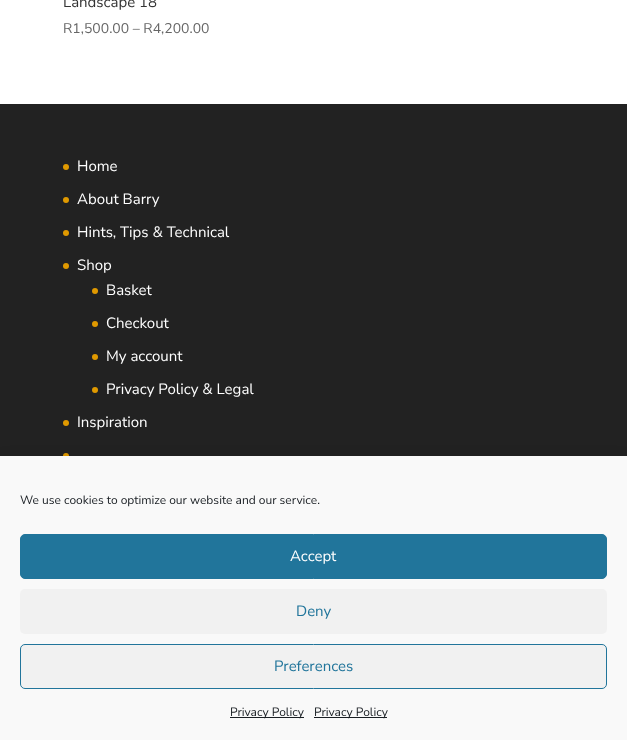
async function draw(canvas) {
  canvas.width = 627;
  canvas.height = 740;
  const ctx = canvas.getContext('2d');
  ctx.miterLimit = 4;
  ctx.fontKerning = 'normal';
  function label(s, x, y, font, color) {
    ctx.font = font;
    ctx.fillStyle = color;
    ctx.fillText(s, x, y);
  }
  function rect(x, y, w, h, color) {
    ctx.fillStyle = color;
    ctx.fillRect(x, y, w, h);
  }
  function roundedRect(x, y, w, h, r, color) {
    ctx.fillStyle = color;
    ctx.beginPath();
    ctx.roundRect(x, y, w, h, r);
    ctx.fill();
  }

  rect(0, 0, 627, 740, '#fff');
  label('Landscape 18', 63, 7, '200 15px Nunito Sans', '#333');
  label('R1,500.00 – R4,200.00', 63, 33, '200 14px Nunito Sans', '#666');
  rect(0, 104, 627, 352, '#222');
  ctx.fillStyle = '#e09900';
  ctx.beginPath();
  ctx.arc(66, 167, 3, 0, 2 * Math.PI);
  ctx.fill();
  label('Home', 77, 171, '200 15px Nunito Sans', '#fff');
  ctx.fillStyle = '#e09900';
  ctx.beginPath();
  ctx.arc(66, 200, 3, 0, 2 * Math.PI);
  ctx.fill();
  label('About Barry', 77, 204, '200 15px Nunito Sans', '#fff');
  ctx.fillStyle = '#e09900';
  ctx.beginPath();
  ctx.arc(66, 233, 3, 0, 2 * Math.PI);
  ctx.fill();
  label('Hints, Tips & Technical', 77, 237, '200 15px Nunito Sans', '#fff');
  ctx.fillStyle = '#e09900';
  ctx.beginPath();
  ctx.arc(66, 266, 3, 0, 2 * Math.PI);
  ctx.fill();
  label('Shop', 77, 270, '200 15px Nunito Sans', '#fff');
  ctx.fillStyle = '#e09900';
  ctx.beginPath();
  ctx.arc(95, 291, 3, 0, 2 * Math.PI);
  ctx.fill();
  label('Basket', 106, 295, '200 15px Nunito Sans', '#fff');
  ctx.fillStyle = '#e09900';
  ctx.beginPath();
  ctx.arc(95, 324, 3, 0, 2 * Math.PI);
  ctx.fill();
  label('Checkout', 106, 328, '200 15px Nunito Sans', '#fff');
  ctx.fillStyle = '#e09900';
  ctx.beginPath();
  ctx.arc(95, 357, 3, 0, 2 * Math.PI);
  ctx.fill();
  label('My account', 106, 361, '200 15px Nunito Sans', '#fff');
  ctx.fillStyle = '#e09900';
  ctx.beginPath();
  ctx.arc(95, 390, 3, 0, 2 * Math.PI);
  ctx.fill();
  label('Privacy Policy & Legal', 106, 394, '200 15px Nunito Sans', '#fff');
  ctx.fillStyle = '#e09900';
  ctx.beginPath();
  ctx.arc(66, 423, 3, 0, 2 * Math.PI);
  ctx.fill();
  label('Inspiration', 77, 427, '200 15px Nunito Sans', '#fff');
  ctx.fillStyle = '#e09900';
  ctx.beginPath();
  ctx.arc(66, 456, 3, 0, 2 * Math.PI);
  ctx.fill();
  ctx.fillStyle = '#00000030';
  ctx.filter = 'blur(10px)';
  ctx.beginPath();
  ctx.rect(0, 466, 627, 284);
  ctx.fill();
  ctx.filter = 'none';
  rect(0, 456, 627, 284, '#f9f9f9');
  label('We use cookies to optimize our website and our service.', 20, 504, '200 12px Nunito Sans', '#191e23');
  ctx.fillStyle = '#21759b';
  ctx.beginPath();
  ctx.roundRect(20.5, 534.5, 586, 44, 4.5);
  ctx.fill();
  ctx.strokeStyle = '#21759b';
  ctx.stroke();
  label('Accept', 290, 561, '200 15px Nunito Sans', '#fff');
  roundedRect(20, 589, 587, 45, 5, '#f1f1f1');
  label('Deny', 296, 616, '200 15px Nunito Sans', '#21759b');
  ctx.fillStyle = '#f1f1f1';
  ctx.beginPath();
  ctx.roundRect(20.5, 644.5, 586, 44, 4.5);
  ctx.fill();
  ctx.stroke();
  label('Preferences', 274, 671, '200 15px Nunito Sans', '#21759b');
  rect(230, 717, 74, 1, '#191e23');
  label('Privacy Policy', 230, 716, '200 12px Nunito Sans', '#191e23');
  rect(314, 717, 73, 1, '#191e23');
  label('Privacy Policy', 314, 716, '200 12px Nunito Sans', '#191e23');
}

draw(document.querySelector('canvas'));
